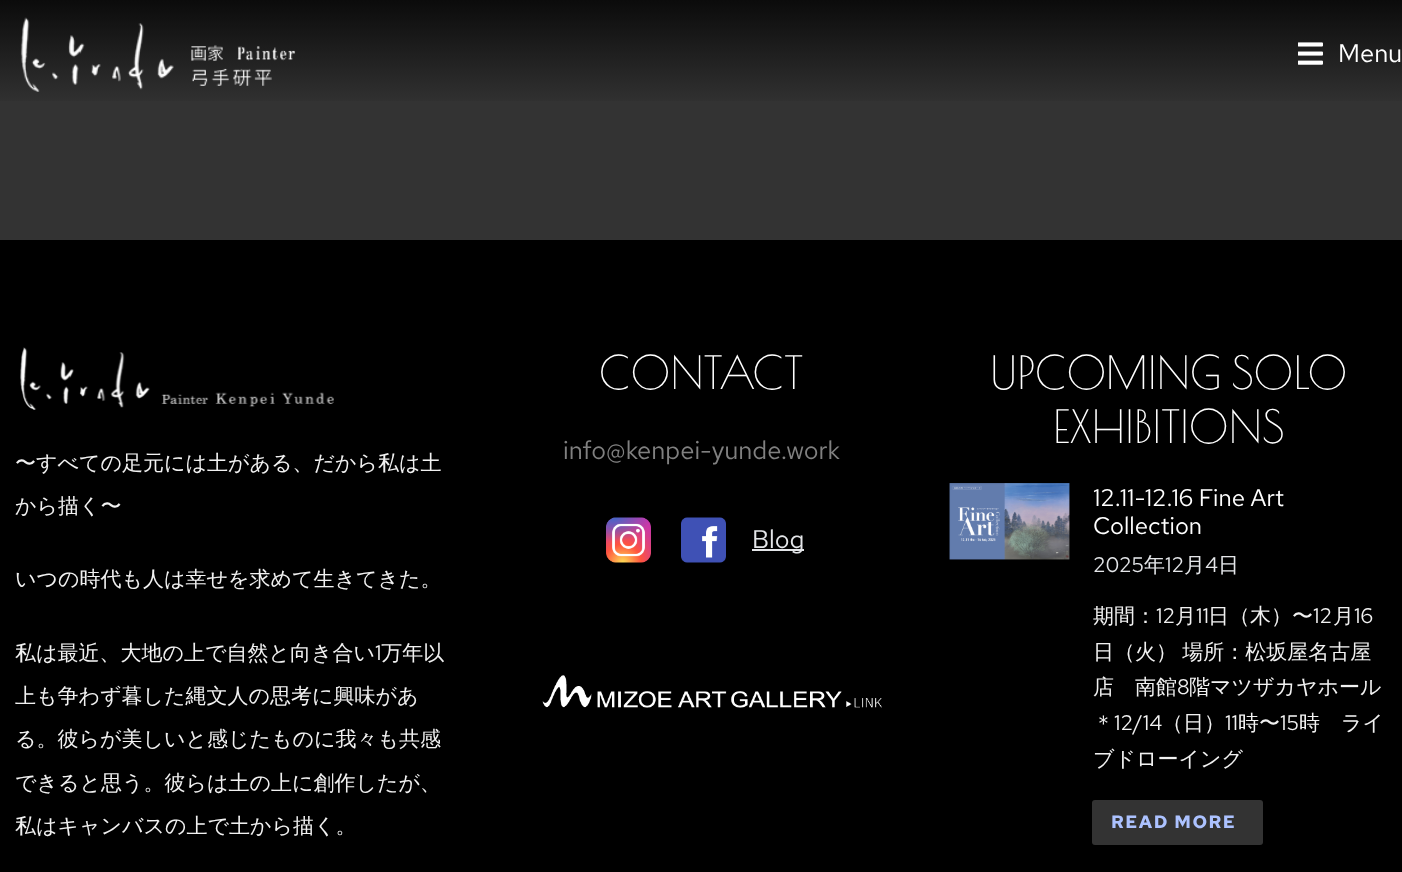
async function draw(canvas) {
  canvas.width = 1402;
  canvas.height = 872;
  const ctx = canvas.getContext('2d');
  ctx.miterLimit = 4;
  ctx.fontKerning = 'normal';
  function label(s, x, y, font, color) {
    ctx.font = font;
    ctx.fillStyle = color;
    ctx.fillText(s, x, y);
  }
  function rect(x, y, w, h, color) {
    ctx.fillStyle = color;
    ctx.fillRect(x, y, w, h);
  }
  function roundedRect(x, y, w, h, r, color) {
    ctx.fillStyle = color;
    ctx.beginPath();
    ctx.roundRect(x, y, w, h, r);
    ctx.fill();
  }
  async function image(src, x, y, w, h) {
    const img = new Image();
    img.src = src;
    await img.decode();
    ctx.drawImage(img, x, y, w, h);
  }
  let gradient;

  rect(0, 0, 1402, 872, '#333');
  gradient = ctx.createLinearGradient(701, 0, 701, 108);
  gradient.addColorStop(0, '#0b0b0b');
  gradient.addColorStop(1, '#333');
  ctx.fillStyle = gradient;
  ctx.fillRect(0, 0, 1402, 101);
  await image('assets/img1.png', 20, 17, 276, 75);
  await image('assets/img2.png', 1298, 42, 25, 23);
  label('Menu', 1338, 62, '25.5px Red Hat Text', '#fff');
  rect(0, 240, 1402, 632, '#000');
  await image('assets/img3.png', 20, 347, 314, 63);
  label('〜すべての足元には土がある、だから私は土', 15, 470, '500 21px WenQuanYi Zen Hei', '#f1f1f1');
  label('から描く〜', 15, 513, '500 21px WenQuanYi Zen Hei', '#f1f1f1');
  label('いつの時代も人は幸せを求めて生きてきた。', 15, 586, '500 21px WenQuanYi Zen Hei', '#f1f1f1');
  label('私は最近、大地の上で自然と向き合い 万年以', 15, 660, '500 21px WenQuanYi Zen Hei', '#f1f1f1');
  label('1', 375, 660, '21px Red Hat Text', '#f1f1f1');
  label('上も争わず暮した縄文人の思考に興味があ', 15, 703, '500 21px WenQuanYi Zen Hei', '#f1f1f1');
  label('る。彼らが美しいと感じたものに我々も共感', 15, 746, '500 21px WenQuanYi Zen Hei', '#f1f1f1');
  label('できると思う。彼らは土の上に創作したが、', 15, 790, '500 21px WenQuanYi Zen Hei', '#f1f1f1');
  label('私はキャンバスの上で土から描く。', 15, 833, '500 21px WenQuanYi Zen Hei', '#f1f1f1');
  label('CONTACT', 599, 389, '45px Poiret One', '#fff');
  label('info@kenpei-yunde.work', 563, 459, '25.5px Red Hat Text', '#808080');
  await image('assets/img4.png', 606, 517, 45, 46);
  await image('assets/img5.png', 681, 517, 45, 46);
  rect(752, 549, 52, 2, '#e4e6e9');
  label('Blog', 752, 548, '25.5px Red Hat Text', '#e4e6e9');
  await image('assets/img6.png', 542, 675, 340, 33);
  label('UPCOMING SOLO', 990, 389, '45px Poiret One', '#fff');
  label('EXHIBITIONS', 1053, 443, '45px Poiret One', '#fff');
  await image('assets/img7.png', 949, 483, 121, 77);
  label('12.11-12.16 Fine Art', 1093, 506, '24px Red Hat Text', '#fff');
  label('Collection', 1093, 534, '24px Red Hat Text', '#fff');
  label('2025', 1093, 572, '21px Red Hat Text', '#e4e6e9');
  label('年', 1144, 572, '500 21px WenQuanYi Zen Hei', '#e4e6e9');
  label('12', 1165, 572, '21px Red Hat Text', '#e4e6e9');
  label('月', 1184, 572, '500 21px WenQuanYi Zen Hei', '#e4e6e9');
  label('4', 1205, 572, '21px Red Hat Text', '#e4e6e9');
  label('日', 1218, 572, '500 21px WenQuanYi Zen Hei', '#e4e6e9');
  label('期間：', 1093, 623, '500 21px WenQuanYi Zen Hei', '#f1f1f1');
  label('12', 1156, 623, '21px Red Hat Text', '#f1f1f1');
  label('月', 1175, 623, '500 21px WenQuanYi Zen Hei', '#f1f1f1');
  label('11', 1196, 623, '21px Red Hat Text', '#f1f1f1');
  label('日（木）〜', 1208, 623, '500 21px WenQuanYi Zen Hei', '#f1f1f1');
  label('12', 1313, 623, '21px Red Hat Text', '#f1f1f1');
  label('月', 1333, 623, '500 21px WenQuanYi Zen Hei', '#f1f1f1');
  label('16', 1354, 623, '21px Red Hat Text', '#f1f1f1');
  ctx.wordSpacing = '-1px';
  label('日（火） 場所：松坂屋名古屋', 1093, 659, '500 21px WenQuanYi Zen Hei', '#f1f1f1');
  ctx.wordSpacing = '0px';
  label('店　南館', 1093, 694, '500 21px WenQuanYi Zen Hei', '#f1f1f1');
  label('8', 1177, 694, '21px Red Hat Text', '#f1f1f1');
  label('階マツザカヤホール', 1189, 694, '500 21px WenQuanYi Zen Hei', '#f1f1f1');
  label('＊', 1093, 730, '500 21px WenQuanYi Zen Hei', '#f1f1f1');
  label('12/14', 1114, 730, '21px Red Hat Text', '#f1f1f1');
  label('（日）', 1162, 730, '500 21px WenQuanYi Zen Hei', '#f1f1f1');
  label('11', 1225, 730, '21px Red Hat Text', '#f1f1f1');
  label('時〜', 1238, 730, '500 21px WenQuanYi Zen Hei', '#f1f1f1');
  label('15', 1280, 730, '21px Red Hat Text', '#f1f1f1');
  label('時　ライ', 1299, 730, '500 21px WenQuanYi Zen Hei', '#f1f1f1');
  label('ブドローイング', 1093, 766, '500 21px WenQuanYi Zen Hei', '#f1f1f1');
  roundedRect(1092, 800, 171, 45, 3, '#333');
  ctx.letterSpacing = '1.5px';
  label('READ MORE', 1111, 828, 'bold 18px Red Hat Text', '#acc2ff');
}

draw(document.querySelector('canvas'));
